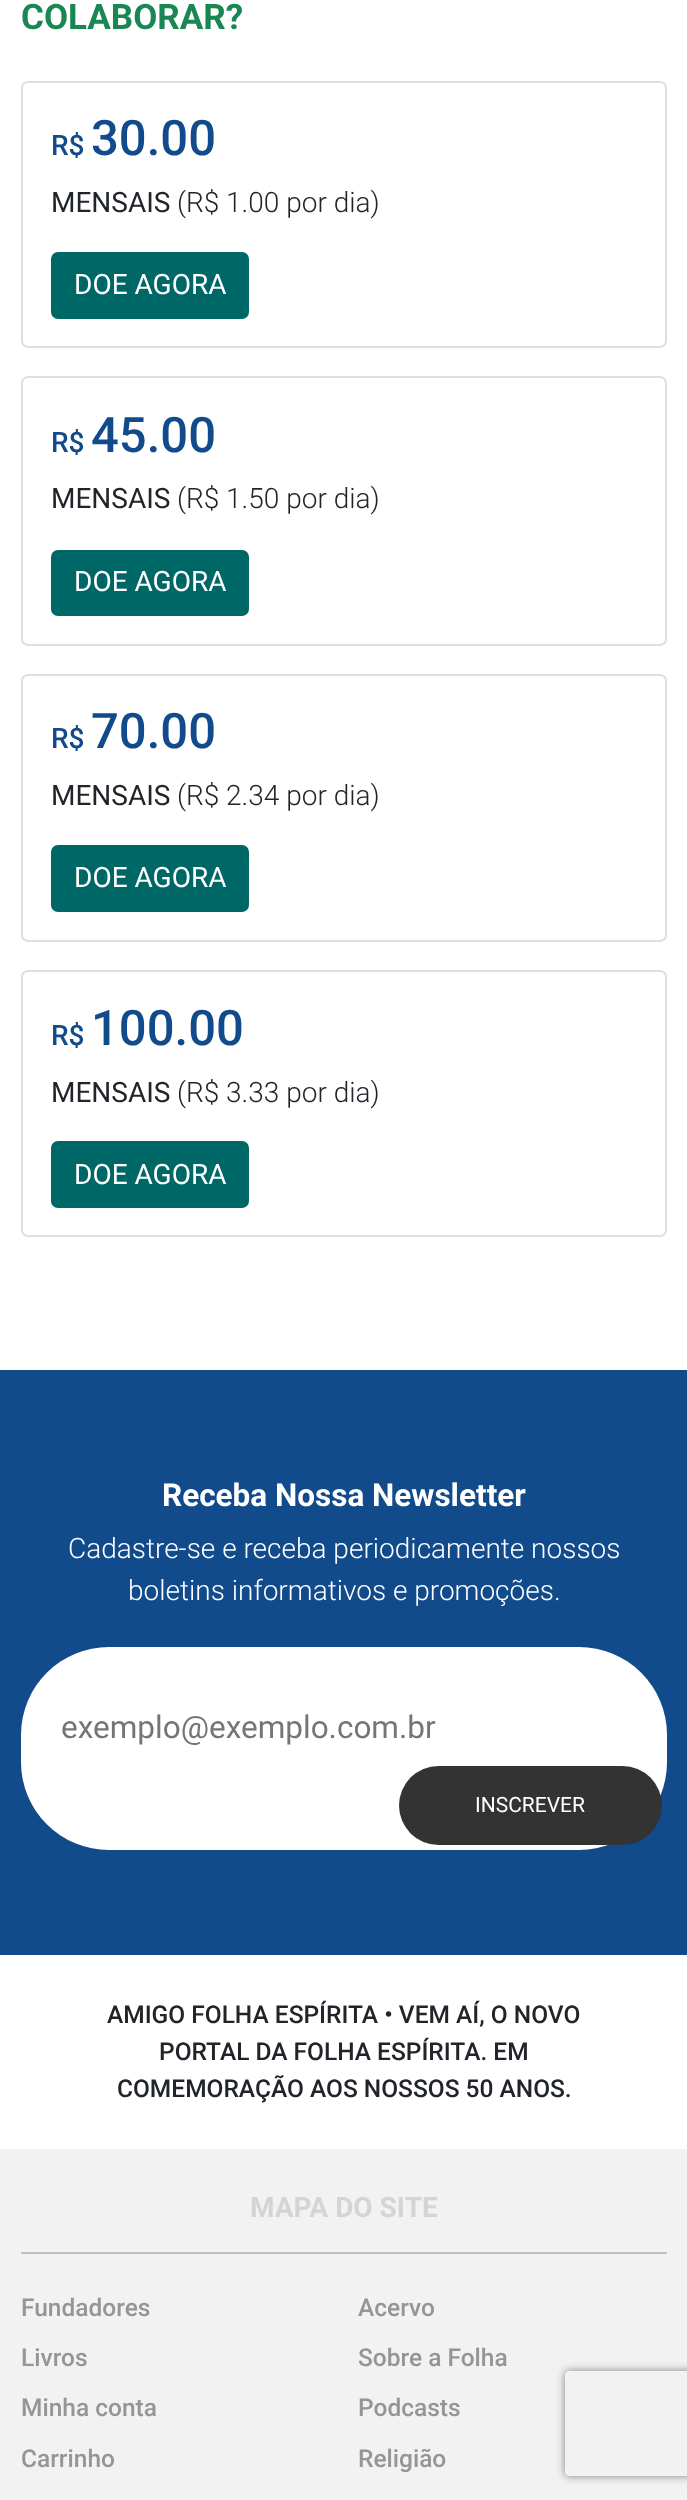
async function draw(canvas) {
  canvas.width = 687;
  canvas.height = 2500;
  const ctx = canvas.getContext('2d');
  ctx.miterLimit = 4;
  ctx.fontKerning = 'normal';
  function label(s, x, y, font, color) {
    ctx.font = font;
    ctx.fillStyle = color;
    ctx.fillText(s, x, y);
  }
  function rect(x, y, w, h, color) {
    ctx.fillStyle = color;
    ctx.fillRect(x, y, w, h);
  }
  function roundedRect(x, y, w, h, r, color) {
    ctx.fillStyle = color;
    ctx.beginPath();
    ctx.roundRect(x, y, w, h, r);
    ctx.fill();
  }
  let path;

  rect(0, 0, 687, 2500, '#fff');
  label('COLABORAR?', 21, 29, 'bold 35px Roboto', '#198754');
  ctx.beginPath();
  ctx.roundRect(22, 82, 644, 265, 6);
  ctx.strokeStyle = '#dfdfdf';
  ctx.lineWidth = 2;
  ctx.stroke();
  label('R$', 51, 155, '500 28px Roboto', '#124b8b');
  label('30.00', 91, 155, '500 49px Roboto', '#124b8b');
  label('MENSAIS', 51, 212, '28px Roboto', '#212529');
  label('(R$ 1.00 por dia)', 177, 212, '300 28px Roboto', '#212529');
  roundedRect(51, 252, 198, 67, 7, '#006767');
  label('DOE AGORA', 74, 294, '28px Roboto', '#fff');
  ctx.beginPath();
  ctx.roundRect(22, 377, 644, 268, 6);
  ctx.stroke();
  label('R$', 51, 452, '500 28px Roboto', '#124b8b');
  label('45.00', 91, 452, '500 49px Roboto', '#124b8b');
  label('MENSAIS', 51, 508, '28px Roboto', '#212529');
  label('(R$ 1.50 por dia)', 177, 508, '300 28px Roboto', '#212529');
  roundedRect(51, 550, 198, 66, 7, '#006767');
  label('DOE AGORA', 74, 591, '28px Roboto', '#fff');
  ctx.beginPath();
  ctx.roundRect(22, 675, 644, 266, 6);
  ctx.stroke();
  label('R$', 51, 748, '500 28px Roboto', '#124b8b');
  label('70.00', 91, 748, '500 49px Roboto', '#124b8b');
  label('MENSAIS', 51, 805, '28px Roboto', '#212529');
  label('(R$ 2.34 por dia)', 177, 805, '300 28px Roboto', '#212529');
  roundedRect(51, 845, 198, 67, 7, '#006767');
  label('DOE AGORA', 74, 887, '28px Roboto', '#fff');
  ctx.beginPath();
  ctx.roundRect(22, 971, 644, 265, 6);
  ctx.stroke();
  label('R$', 51, 1045, '500 28px Roboto', '#124b8b');
  label('100.00', 91, 1045, '500 49px Roboto', '#124b8b');
  label('MENSAIS', 51, 1102, '28px Roboto', '#212529');
  label('(R$ 3.33 por dia)', 177, 1102, '300 28px Roboto', '#212529');
  roundedRect(51, 1141, 198, 67, 7, '#006767');
  label('DOE AGORA', 74, 1184, '28px Roboto', '#fff');
  rect(0, 1370, 687, 585, '#124b8b');
  label('Receba Nossa Newsletter', 162, 1506, 'bold 31.5px Roboto', '#fff');
  label('Cadastre-se e receba periodicamente nossos', 68, 1558, '300 28px Roboto', '#fff');
  label('boletins informativos e promoções.', 128, 1600, '300 28px Roboto', '#fff');
  roundedRect(21, 1647, 646, 203, 88, '#fff');
  label('exemplo@exemplo.com.br', 61, 1738, '31.5px Roboto', '#757575');
  roundedRect(399, 1766, 263, 79, 39.5, '#333');
  label('INSCREVER', 475, 1812, '21px Roboto', '#fff');
  label('AMIGO FOLHA ESPÍRITA • VEM AÍ, O NOVO', 107, 2023, '500 24.5px Roboto', '#212529');
  label('PORTAL DA FOLHA ESPÍRITA. EM', 159, 2060, '500 24.5px Roboto', '#212529');
  label('COMEMORAÇÃO AOS NOSSOS 50 ANOS.', 117, 2097, '500 24.5px Roboto', '#212529');
  rect(0, 2149, 687, 351, '#f2f2f2');
  label('MAPA DO SITE', 250, 2217, 'bold 28px Roboto', '#d5d4d4');
  rect(21, 2252, 646, 2, '#bebfc0');
  label('Fundadores', 21, 2316, '500 24.5px Roboto', '#959595');
  label('Acervo', 358, 2316, '500 24.5px Roboto', '#959595');
  label('Livros', 21, 2366, '500 24.5px Roboto', '#959595');
  label('Sobre a Folha', 358, 2366, '500 24.5px Roboto', '#959595');
  label('Minha conta', 21, 2416, '500 24.5px Roboto', '#959595');
  label('Podcasts', 358, 2416, '500 24.5px Roboto', '#959595');
  label('Carrinho', 21, 2467, '500 24.5px Roboto', '#959595');
  label('Religião', 358, 2467, '500 24.5px Roboto', '#959595');
  ctx.save();
  path = new Path2D('M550 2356H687V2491H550ZM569 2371H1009C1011 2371 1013 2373 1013 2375V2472C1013 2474 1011 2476 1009 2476H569C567 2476 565 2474 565 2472V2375C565 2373 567 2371 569 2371Z');
  ctx.clip(path, 'evenodd');
  ctx.fillStyle = '#808080';
  ctx.filter = 'blur(4.5px)';
  ctx.beginPath();
  ctx.roundRect(565, 2371, 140, 105, 4);
  ctx.fill();
  ctx.filter = 'none';
  ctx.restore();
}

draw(document.querySelector('canvas'));
